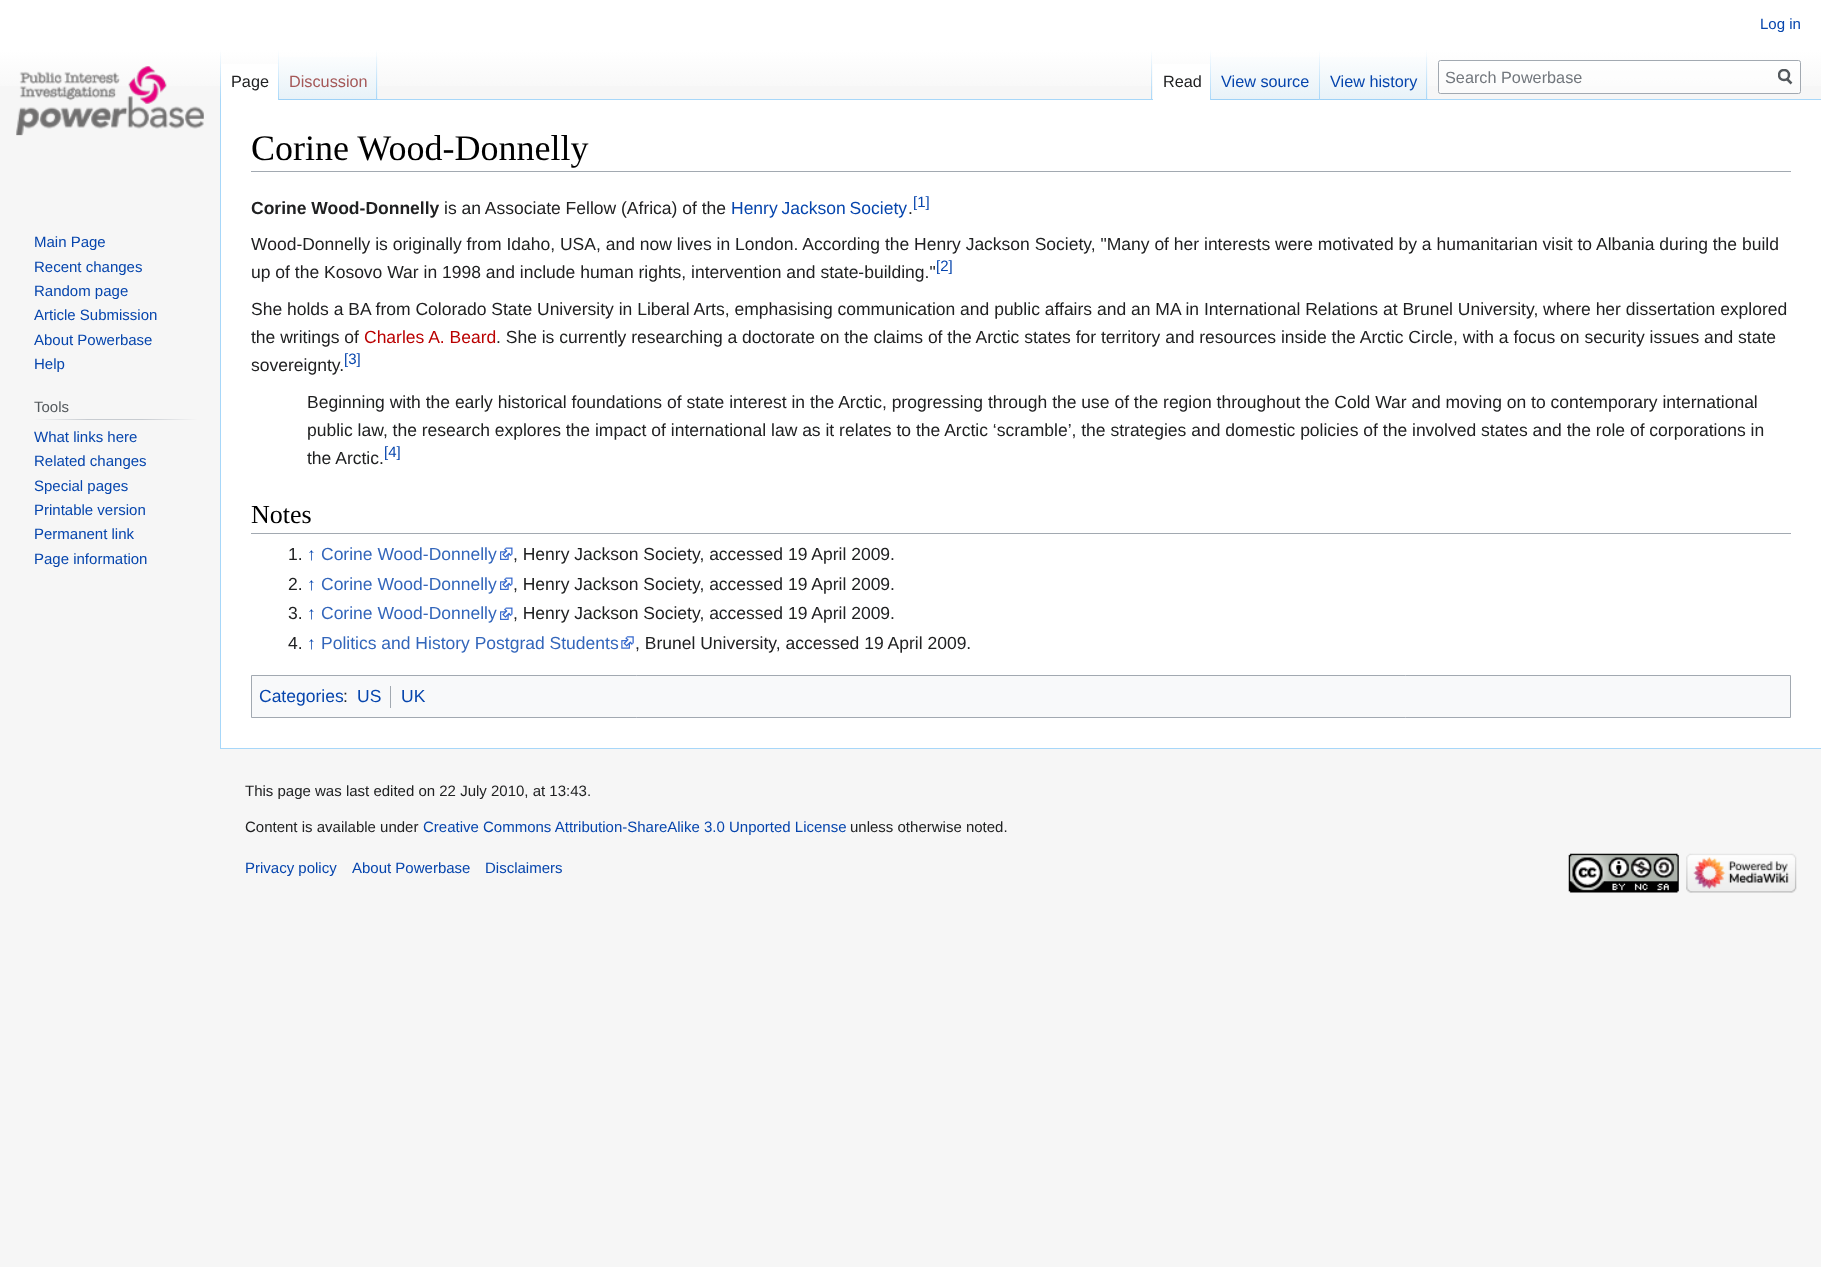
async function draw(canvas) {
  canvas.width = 1821;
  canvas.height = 1267;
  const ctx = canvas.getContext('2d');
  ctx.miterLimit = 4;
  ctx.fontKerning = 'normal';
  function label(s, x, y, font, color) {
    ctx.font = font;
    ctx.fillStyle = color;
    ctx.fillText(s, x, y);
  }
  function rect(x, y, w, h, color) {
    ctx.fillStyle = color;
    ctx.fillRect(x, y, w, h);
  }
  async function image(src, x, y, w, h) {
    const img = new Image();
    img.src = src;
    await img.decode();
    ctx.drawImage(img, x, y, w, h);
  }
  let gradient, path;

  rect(0, 0, 1821, 1267, '#f6f6f6');
  gradient = ctx.createLinearGradient(911, 0, 911, 100);
  gradient.addColorStop(0.5, '#fff');
  gradient.addColorStop(1, '#f6f6f6');
  ctx.fillStyle = gradient;
  ctx.fillRect(0, 0, 1821, 86);
  label('Log in', 1760, 29, '15px Liberation Sans', '#0645ad');
  rect(220, 748, 1601, 1, '#a7d7f9');
  rect(220, 99, 1, 650, '#a7d7f9');
  gradient = ctx.createLinearGradient(221, 50, 221, 100);
  gradient.addColorStop(0, '#a7d7f900');
  gradient.addColorStop(1, '#a7d7f9');
  ctx.fillStyle = gradient;
  ctx.fillRect(220, 50, 1, 50);
  rect(221, 64, 57, 36, '#fff');
  gradient = ctx.createLinearGradient(278, 50, 278, 100);
  gradient.addColorStop(0, '#fff');
  gradient.addColorStop(1, '#a7d7f9');
  ctx.fillStyle = gradient;
  ctx.fillRect(278, 50, 1, 50);
  label('Page', 231, 87, '16.25px Liberation Sans', '#202122');
  gradient = ctx.createLinearGradient(328, 100, 328, 50);
  gradient.addColorStop(0, '#77c1f6');
  gradient.addColorStop(0.03, '#e8f2f8');
  gradient.addColorStop(1, '#fff');
  ctx.fillStyle = gradient;
  ctx.fillRect(279, 57, 99, 43);
  gradient = ctx.createLinearGradient(377, 50, 377, 100);
  gradient.addColorStop(0, '#a7d7f900');
  gradient.addColorStop(1, '#a7d7f9');
  ctx.fillStyle = gradient;
  ctx.fillRect(376, 50, 1, 50);
  label('Discussion', 289, 87, '16.25px Liberation Sans', '#a55858');
  rect(378, 99, 1443, 1, '#a7d7f9');
  gradient = ctx.createLinearGradient(1152, 50, 1152, 100);
  gradient.addColorStop(0, '#a7d7f900');
  gradient.addColorStop(1, '#a7d7f9');
  ctx.fillStyle = gradient;
  ctx.fillRect(1151, 50, 1, 50);
  rect(1153, 64, 57, 36, '#fff');
  gradient = ctx.createLinearGradient(1211, 50, 1211, 100);
  gradient.addColorStop(0, '#fff');
  gradient.addColorStop(1, '#a7d7f9');
  ctx.fillStyle = gradient;
  ctx.fillRect(1210, 50, 1, 50);
  label('Read', 1163, 87, '16.25px Liberation Sans', '#202122');
  gradient = ctx.createLinearGradient(1266, 100, 1266, 50);
  gradient.addColorStop(0, '#77c1f6');
  gradient.addColorStop(0.03, '#e8f2f8');
  gradient.addColorStop(1, '#fff');
  ctx.fillStyle = gradient;
  ctx.fillRect(1211, 57, 109, 43);
  gradient = ctx.createLinearGradient(1319, 50, 1319, 100);
  gradient.addColorStop(0, '#a7d7f900');
  gradient.addColorStop(1, '#a7d7f9');
  ctx.fillStyle = gradient;
  ctx.fillRect(1319, 50, 1, 50);
  label('View source', 1221, 87, '16.25px Liberation Sans', '#0645ad');
  gradient = ctx.createLinearGradient(1374, 100, 1374, 50);
  gradient.addColorStop(0, '#77c1f6');
  gradient.addColorStop(0.03, '#e8f2f8');
  gradient.addColorStop(1, '#fff');
  ctx.fillStyle = gradient;
  ctx.fillRect(1320, 57, 108, 43);
  gradient = ctx.createLinearGradient(1427, 50, 1427, 100);
  gradient.addColorStop(0, '#a7d7f900');
  gradient.addColorStop(1, '#a7d7f9');
  ctx.fillStyle = gradient;
  ctx.fillRect(1426, 50, 1, 50);
  label('View history', 1330, 87, '16.25px Liberation Sans', '#0645ad');
  ctx.fillStyle = '#ffffff80';
  ctx.beginPath();
  ctx.roundRect(1438.5, 60.5, 362, 33, 2);
  ctx.fill();
  ctx.strokeStyle = '#a2a9b1';
  ctx.stroke();
  label('Search Powerbase', 1445, 83, '16.25px Liberation Sans', '#72777d');
  path = new Path2D('M1791.5 83.5L1786.5 78.5');
  ctx.strokeStyle = '#54595d';
  ctx.lineWidth = 2.5;
  ctx.stroke(path);
  ctx.save();
  ctx.beginPath();
  ctx.rect(1778, 69, 15, 16);
  ctx.clip();
  ctx.beginPath();
  ctx.arc(1784, 75, 5, 0, 2 * Math.PI);
  ctx.stroke();
  ctx.restore();
  await image('assets/img1.png', 16, 66, 188, 70);
  label('Main Page', 34, 247, '15px Liberation Sans', '#0645ad');
  label('Recent changes', 34, 272, '15px Liberation Sans', '#0645ad');
  label('Random page', 34, 296, '15px Liberation Sans', '#0645ad');
  label('Article Submission', 34, 320, '15px Liberation Sans', '#0645ad');
  label('About Powerbase', 34, 345, '15px Liberation Sans', '#0645ad');
  label('Help', 34, 369, '15px Liberation Sans', '#0645ad');
  gradient = ctx.createLinearGradient(34, 419, 198, 419);
  gradient.addColorStop(0, '#f6f6f6');
  gradient.addColorStop(0.33, '#c8ccd1');
  gradient.addColorStop(0.66, '#c8ccd1');
  gradient.addColorStop(1, '#f6f6f6');
  ctx.fillStyle = gradient;
  ctx.fillRect(34, 419, 164, 1);
  label('Tools', 34, 412, '15px Liberation Sans', '#54595d');
  label('What links here', 34, 442, '15px Liberation Sans', '#0645ad');
  label('Related changes', 34, 466, '15px Liberation Sans', '#0645ad');
  label('Special pages', 34, 491, '15px Liberation Sans', '#0645ad');
  label('Printable version', 34, 515, '15px Liberation Sans', '#0645ad');
  label('Permanent link', 34, 539, '15px Liberation Sans', '#0645ad');
  label('Page information', 34, 564, '15px Liberation Sans', '#0645ad');
  rect(221, 100, 1600, 648, '#fff');
  rect(251, 171, 1540, 1, '#a2a9b1');
  label('Corine Wood-Donnelly', 251, 160, '36px Liberation Serif', '#000');
  label('Corine Wood-Donnelly', 251, 214, 'bold 17.5px Liberation Sans', '#202122');
  label('is an Associate Fellow (Africa) of the', 444, 214, '17.5px Liberation Sans', '#202122');
  ctx.wordSpacing = '-1px';
  label('Henry Jackson Society', 731, 214, '17.5px Liberation Sans', '#0645ad');
  ctx.wordSpacing = '0px';
  label('.', 908, 214, '17.5px Liberation Sans', '#202122');
  label('[1]', 913, 207, '15px Liberation Sans', '#0645ad');
  label('Wood-Donnelly is originally from Idaho, USA, and now lives in London. According the Henry Jackson Society, "Many of her interests were motivated by a humanitarian visit to Albania during the build', 251, 250, '17.5px Liberation Sans', '#202122');
  label('up of the Kosovo War in 1998 and include human rights, intervention and state-building."', 251, 278, '17.5px Liberation Sans', '#202122');
  label('[2]', 936, 271, '15px Liberation Sans', '#0645ad');
  label('She holds a BA from Colorado State University in Liberal Arts, emphasising communication and public affairs and an MA in International Relations at Brunel University, where her dissertation explored', 251, 315, '17.5px Liberation Sans', '#202122');
  label('the writings of', 251, 343, '17.5px Liberation Sans', '#202122');
  label('Charles A. Beard', 364, 343, '17.5px Liberation Sans', '#ba0000');
  label('. She is currently researching a doctorate on the claims of the Arctic states for territory and resources inside the Arctic Circle, with a focus on security issues and state', 496, 343, '17.5px Liberation Sans', '#202122');
  label('sovereignty.', 251, 371, '17.5px Liberation Sans', '#202122');
  label('[3]', 344, 364, '15px Liberation Sans', '#0645ad');
  label('Beginning with the early historical foundations of state interest in the Arctic, progressing through the use of the region throughout the Cold War and moving on to contemporary international', 307, 408, '17.5px Liberation Sans', '#202122');
  label('public law, the research explores the impact of international law as it relates to the Arctic ‘scramble’, the strategies and domestic policies of the involved states and the role of corporations in', 307, 436, '17.5px Liberation Sans', '#202122');
  label('the Arctic.', 307, 464, '17.5px Liberation Sans', '#202122');
  label('[4]', 384, 457, '15px Liberation Sans', '#0645ad');
  rect(251, 533, 1540, 1, '#a2a9b1');
  label('Notes', 251, 523, '26px Liberation Serif', '#000');
  label('1.', 288, 560, '17.5px Liberation Sans', '#202122');
  label('↑', 307, 560, '17.5px Liberation Sans', '#0645ad');
  label('Corine Wood-Donnelly', 321, 560, '17.5px Liberation Sans', '#36b');
  await image('assets/img2.png', 500, 547, 13, 13);
  label(', Henry Jackson Society, accessed 19 April 2009.', 513, 560, '17.5px Liberation Sans', '#202122');
  label('2.', 288, 590, '17.5px Liberation Sans', '#202122');
  label('↑', 307, 590, '17.5px Liberation Sans', '#0645ad');
  label('Corine Wood-Donnelly', 321, 590, '17.5px Liberation Sans', '#36b');
  await image('assets/img2.png', 500, 577, 13, 13);
  label(', Henry Jackson Society, accessed 19 April 2009.', 513, 590, '17.5px Liberation Sans', '#202122');
  label('3.', 288, 619, '17.5px Liberation Sans', '#202122');
  label('↑', 307, 619, '17.5px Liberation Sans', '#0645ad');
  label('Corine Wood-Donnelly', 321, 619, '17.5px Liberation Sans', '#36b');
  await image('assets/img2.png', 500, 607, 13, 13);
  label(', Henry Jackson Society, accessed 19 April 2009.', 513, 619, '17.5px Liberation Sans', '#202122');
  label('4.', 288, 649, '17.5px Liberation Sans', '#202122');
  label('↑', 307, 649, '17.5px Liberation Sans', '#0645ad');
  label('Politics and History Postgrad Students', 321, 649, '17.5px Liberation Sans', '#36b');
  await image('assets/img3.png', 621, 636, 13, 13);
  label(', Brunel University, accessed 19 April 2009.', 635, 649, '17.5px Liberation Sans', '#202122');
  ctx.fillStyle = '#f8f9fa';
  ctx.beginPath();
  ctx.rect(251.5, 675.5, 1539, 42);
  ctx.fill();
  ctx.strokeStyle = '#a2a9b1';
  ctx.lineWidth = 1;
  ctx.stroke();
  label('Categories', 259, 702, '17.5px Liberation Sans', '#0645ad');
  label(':', 343, 702, '17.5px Liberation Sans', '#202122');
  label('US', 357, 702, '17.5px Liberation Sans', '#0645ad');
  rect(390, 686, 1, 22, '#a2a9b1');
  label('UK', 401, 702, '17.5px Liberation Sans', '#0645ad');
  label('This page was last edited on 22 July 2010, at 13:43.', 245, 796, '15px Liberation Sans', '#202122');
  label('Content is available under', 245, 832, '15px Liberation Sans', '#202122');
  label('Creative Commons Attribution-ShareAlike 3.0 Unported License', 423, 832, '15px Liberation Sans', '#0645ad');
  label('unless otherwise noted.', 850, 832, '15px Liberation Sans', '#202122');
  label('Privacy policy', 245, 873, '15px Liberation Sans', '#0645ad');
  label('About Powerbase', 352, 873, '15px Liberation Sans', '#0645ad');
  label('Disclaimers', 485, 873, '15px Liberation Sans', '#0645ad');
  await image('assets/img4.png', 1568, 853, 111, 40);
  await image('assets/img5.png', 1686, 853, 111, 40);
}

draw(document.querySelector('canvas'));
